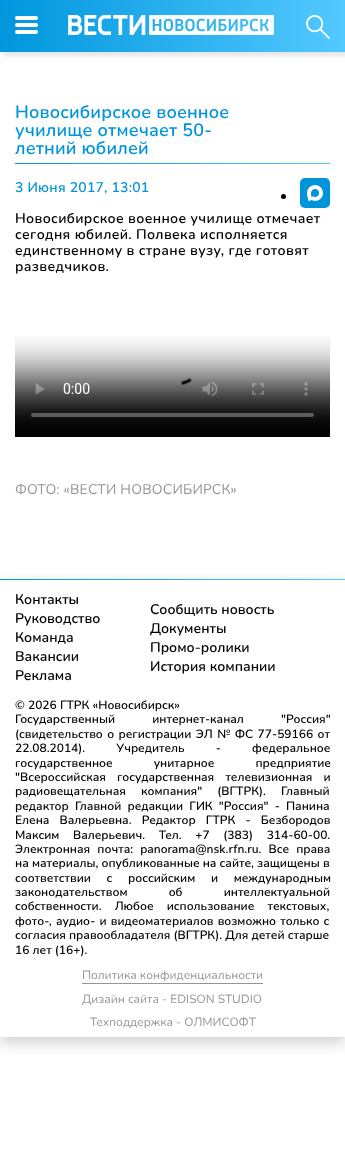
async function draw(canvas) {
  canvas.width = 345;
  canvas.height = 1158;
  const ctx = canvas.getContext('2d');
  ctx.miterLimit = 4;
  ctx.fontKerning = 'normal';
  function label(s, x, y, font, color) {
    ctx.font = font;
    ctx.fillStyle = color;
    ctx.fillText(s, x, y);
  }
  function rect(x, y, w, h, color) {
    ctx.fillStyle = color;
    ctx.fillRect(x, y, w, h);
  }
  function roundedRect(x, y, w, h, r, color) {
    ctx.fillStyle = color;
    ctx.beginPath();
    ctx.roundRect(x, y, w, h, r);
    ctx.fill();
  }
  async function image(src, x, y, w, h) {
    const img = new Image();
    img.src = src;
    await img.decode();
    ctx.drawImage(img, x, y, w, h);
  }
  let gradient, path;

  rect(0, 0, 345, 1158, '#fff');
  ctx.fillStyle = '#0000001a';
  ctx.filter = 'blur(2.5px)';
  ctx.beginPath();
  ctx.rect(3, 4, 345, 52);
  ctx.fill();
  ctx.filter = 'none';
  gradient = ctx.createLinearGradient(345, 26, 0, 26);
  gradient.addColorStop(0, '#53c9ff');
  gradient.addColorStop(1, '#0096dd');
  ctx.fillStyle = gradient;
  ctx.fillRect(0, 0, 345, 52);
  roundedRect(15, 16, 23, 4, 2, '#fff');
  roundedRect(15, 23, 23, 4, 2, '#fff');
  roundedRect(15, 30, 23, 4, 2, '#fff');
  await image('assets/img1.png', 68, 15, 206, 20);
  await image('assets/img2.png', 306, 15, 24, 24);
  ctx.letterSpacing = '0.15px';
  label('Новосибирское военное', 15, 118, '600 18px Nunito', '#0095da');
  label('училище отмечает 50-', 15, 136, '600 18px Nunito', '#0095da');
  label('летний юбилей', 15, 154, '600 18px Nunito', '#0095da');
  gradient = ctx.createLinearGradient(330, 164, 15, 164);
  gradient.addColorStop(0, '#53c9ff');
  gradient.addColorStop(1, '#0096dd');
  ctx.fillStyle = gradient;
  ctx.fillRect(15, 163, 315, 1);
  ctx.letterSpacing = '0.2px';
  label('3 Июня 2017, 13:01', 15, 192, '600 14px Nunito', '#0095da');
  ctx.fillStyle = '#000';
  ctx.beginPath();
  ctx.arc(283.5, 196.5, 2.5, 0, 2 * Math.PI);
  ctx.fill();
  roundedRect(300, 178, 30, 30, 5, '#0094da');
  await image('assets/img3.png', 307, 185, 16, 16);
  ctx.letterSpacing = '0.35px';
  label('Новосибирское военное училище отмечает', 15, 223, '600 14px Nunito', '#000');
  label('сегодня юбилей. Полвека исполняется', 15, 239, '600 14px Nunito', '#000');
  label('единственному в стране вузу, где готовят', 15, 255, '600 14px Nunito', '#000');
  label('разведчиков.', 15, 271, '600 14px Nunito', '#000');
  await image('assets/img4.png', 15, 336, 315, 101);
  ctx.letterSpacing = '0.2px';
  label('ФОТО: «ВЕСТИ НОВОСИБИРСК»', 15, 494, '14px Nunito', '#959595');
  ctx.save();
  path = new Path2D('M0 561H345V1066H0ZM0 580H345V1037H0Z');
  ctx.clip(path, 'evenodd');
  ctx.fillStyle = '#00000033';
  ctx.filter = 'blur(7.5px)';
  ctx.beginPath();
  ctx.rect(0, 585, 345, 457);
  ctx.fill();
  ctx.filter = 'none';
  ctx.restore();
  gradient = ctx.createLinearGradient(345, 580, 0, 580);
  gradient.addColorStop(0, '#53c9ff');
  gradient.addColorStop(1, '#0096dd');
  ctx.fillStyle = gradient;
  ctx.fillRect(0, 579, 345, 1);
  ctx.letterSpacing = '0px';
  label('Контакты', 15, 604, '600 14px Nunito', '#000');
  label('Руководство', 15, 623, '600 14px Nunito', '#000');
  label('Команда', 15, 642, '600 14px Nunito', '#000');
  label('Вакансии', 15, 661, '600 14px Nunito', '#000');
  label('Реклама', 15, 680, '600 14px Nunito', '#000');
  label('Сообщить новость', 150, 614, '600 14px Nunito', '#000');
  label('Документы', 150, 633, '600 14px Nunito', '#000');
  label('Промо-ролики', 150, 652, '600 14px Nunito', '#000');
  label('История компании', 150, 671, '600 14px Nunito', '#000');
  label('© 2026 ГТРК «Новосибирск»', 15, 709, '600 12px Nunito', '#000');
  ctx.wordSpacing = '34px';
  label('Государственный интернет-канал "Россия"', 15, 723, '600 12px Nunito', '#000');
  ctx.wordSpacing = '1.25px';
  label('(свидетельство о регистрации ЭЛ № ФС 77-59166 от', 15, 738, '600 12px Nunito', '#000');
  ctx.wordSpacing = '28px';
  label('22.08.2014). Учредитель - федеральное', 15, 752, '600 12px Nunito', '#000');
  ctx.wordSpacing = '38px';
  label('государственное унитарное предприятие', 15, 767, '600 12px Nunito', '#000');
  ctx.wordSpacing = '8px';
  label('"Всероссийская государственная телевизионная и', 15, 781, '600 12px Nunito', '#000');
  ctx.wordSpacing = '12px';
  label('радиовещательная компания" (ВГТРК). Главный', 15, 795, '600 12px Nunito', '#000');
  ctx.wordSpacing = '3px';
  label('редактор Главной редакции ГИК "Россия" - Панина', 15, 810, '600 12px Nunito', '#000');
  ctx.wordSpacing = '7px';
  label('Елена Валерьевна. Редактор ГТРК - Безбородов', 15, 824, '600 12px Nunito', '#000');
  ctx.wordSpacing = '10.5px';
  label('Максим Валерьевич. Тел. +7 (383) 314-60-00.', 15, 839, '600 12px Nunito', '#000');
  ctx.wordSpacing = '4px';
  label('Электронная почта: panorama@nsk.rfn.ru. Все права', 15, 853, '600 12px Nunito', '#000');
  ctx.wordSpacing = '0px';
  label('на материалы, опубликованные на сайте, защищены в', 15, 867, '600 12px Nunito', '#000');
  ctx.wordSpacing = '12.5px';
  label('соответствии с российским и международным', 15, 882, '600 12px Nunito', '#000');
  ctx.wordSpacing = '38px';
  label('законодательством об интеллектуальной', 15, 896, '600 12px Nunito', '#000');
  ctx.wordSpacing = '10px';
  label('собственности. Любое использование текстовых,', 15, 910, '600 12px Nunito', '#000');
  ctx.wordSpacing = '1px';
  label('фото-, аудио- и видеоматериалов возможно только с', 15, 925, '600 12px Nunito', '#000');
  ctx.wordSpacing = '0px';
  label('согласия правообладателя (ВГТРК). Для детей старше', 15, 939, '600 12px Nunito', '#000');
  label('16 лет (16+).', 15, 954, '600 12px Nunito', '#000');
  rect(82, 983, 181, 1, '#959595');
  label('Политика конфиденциальности', 82, 979, '12px Nunito', '#959595');
  label('Дизайн сайта - EDISON STUDIO', 82, 1003, '12px Nunito', '#959595');
  label('Техподдержка - ОЛМИСОФТ', 90, 1026, '12px Nunito', '#959595');
}

draw(document.querySelector('canvas'));
